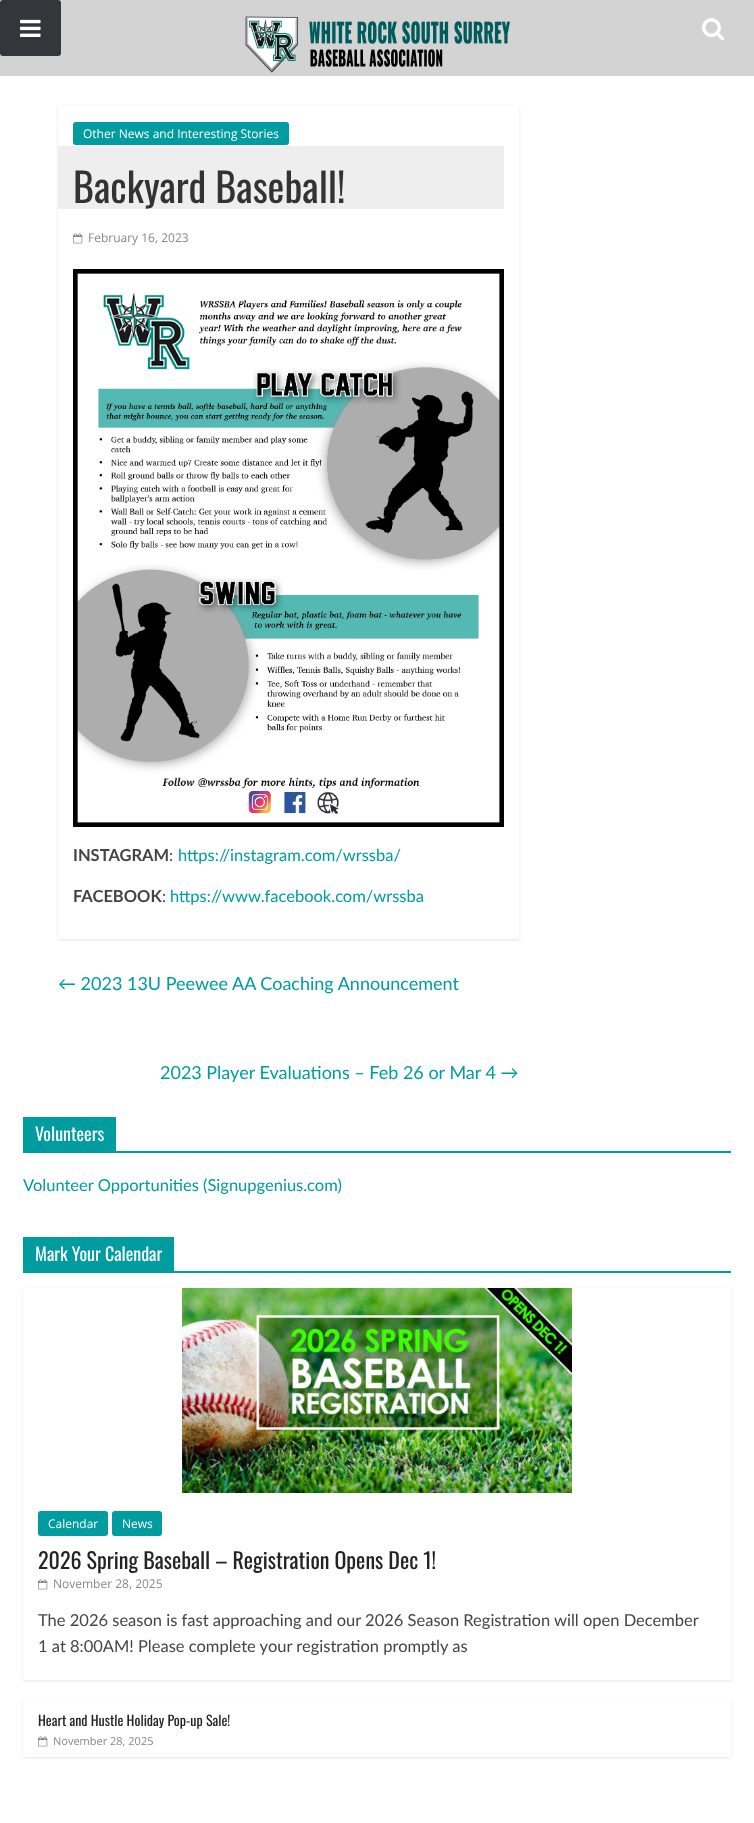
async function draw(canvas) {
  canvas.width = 754;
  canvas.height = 1823;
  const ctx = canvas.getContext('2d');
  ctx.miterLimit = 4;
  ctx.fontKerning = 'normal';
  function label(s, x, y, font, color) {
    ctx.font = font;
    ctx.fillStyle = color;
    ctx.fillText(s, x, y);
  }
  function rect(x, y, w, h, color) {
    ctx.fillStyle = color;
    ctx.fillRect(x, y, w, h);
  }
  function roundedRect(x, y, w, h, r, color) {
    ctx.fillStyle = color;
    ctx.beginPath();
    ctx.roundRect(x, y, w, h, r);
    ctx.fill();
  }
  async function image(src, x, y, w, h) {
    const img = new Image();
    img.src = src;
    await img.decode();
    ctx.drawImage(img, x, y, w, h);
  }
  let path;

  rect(0, 0, 754, 1823, '#fff');
  rect(0, 0, 754, 76, '#d3d3d3');
  roundedRect(0, 0, 61, 56, 3, '#33363b');
  await image('assets/img1.png', 20, 19, 21, 18);
  await image('assets/img2.png', 245, 16, 265, 57);
  await image('assets/img3.png', 702, 18, 23, 23);
  ctx.save();
  path = new Path2D('M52 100H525V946H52ZM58 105H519V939H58Z');
  ctx.clip(path, 'evenodd');
  ctx.fillStyle = '#0000001a';
  ctx.filter = 'blur(1.5px)';
  ctx.beginPath();
  ctx.rect(58, 106, 461, 834);
  ctx.fill();
  ctx.filter = 'none';
  ctx.restore();
  roundedRect(73, 122, 216, 23, 3, '#009ca0');
  label('Other News and Interesting Stories', 83, 138, '12px Open Sans', '#fff');
  rect(58, 146, 446, 63, '#eee');
  label('Backyard Baseball!', 73, 203, '40px Oswald', '#333');
  await image('assets/img4.png', 73, 233, 10, 11);
  label('February 16, 2023', 88, 242, '12px Open Sans', '#888');
  await image('assets/img5.png', 73, 269, 431, 558);
  label('INSTAGRAM', 73, 861, 'bold 16.5px Lato', '#444');
  label(':', 169, 861, '16.5px Lato', '#444');
  label('https://instagram.com/wrssba/', 178, 861, '16.5px Lato', '#009ca0');
  label('FACEBOOK', 73, 902, 'bold 16.5px Lato', '#444');
  label(':', 162, 902, '16.5px Lato', '#444');
  label('https://www.facebook.com/wrssba', 170, 902, '16.5px Lato', '#009ca0');
  label('← 2023 13U Peewee AA Coaching Announcement', 58, 990, '18px Lato', '#009ca0');
  label('2023 Player Evaluations – Feb 26 or Mar 4 →', 160, 1079, '18px Lato', '#009ca0');
  rect(23, 1151, 708, 2, '#009ca0');
  rect(23, 1117, 93, 34, '#009ca0');
  label('Volunteers', 35, 1141, '18px Oswald', '#fff');
  label('Volunteer Opportunities (Signupgenius.com)', 23, 1191, '16.5px Lato', '#009ca0');
  rect(23, 1271, 708, 2, '#009ca0');
  rect(23, 1237, 151, 34, '#009ca0');
  label('Mark Your Calendar', 35, 1261, '18px Oswald', '#fff');
  ctx.save();
  path = new Path2D('M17 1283H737V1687H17ZM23 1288H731V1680H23Z');
  ctx.clip(path, 'evenodd');
  ctx.fillStyle = '#0000001a';
  ctx.filter = 'blur(1.5px)';
  ctx.beginPath();
  ctx.rect(23, 1289, 708, 392);
  ctx.fill();
  ctx.filter = 'none';
  ctx.restore();
  await image('assets/img6.png', 182, 1288, 390, 205);
  roundedRect(38, 1511, 70, 25, 3, '#009ca0');
  label('Calendar', 48, 1528, '12px Open Sans', '#fff');
  roundedRect(112, 1511, 50, 25, 3, '#009ca0');
  label('News', 122, 1528, '12px Open Sans', '#fff');
  label('2026 Spring Baseball – Registration Opens Dec 1!', 38, 1569, '22px Oswald', '#232323');
  await image('assets/img4.png', 38, 1579, 10, 11);
  label('November 28, 2025', 53, 1588, '12px Open Sans', '#888');
  label('The 2026 season is fast approaching and our 2026 Season Registration will open December', 38, 1626, '16.5px Lato', '#444');
  label('1 at 8:00AM! Please complete your registration promptly as', 38, 1652, '16.5px Lato', '#444');
  ctx.save();
  path = new Path2D('M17 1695H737V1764H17ZM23 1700H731V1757H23Z');
  ctx.clip(path, 'evenodd');
  ctx.fillStyle = '#0000001a';
  ctx.filter = 'blur(1.5px)';
  ctx.beginPath();
  ctx.rect(23, 1701, 708, 57);
  ctx.fill();
  ctx.filter = 'none';
  ctx.restore();
  label('Heart and Hustle Holiday Pop-up Sale!', 38, 1726, '14px Oswald', '#232323');
  await image('assets/img4.png', 38, 1736, 10, 11);
  label('November 28, 2025', 53, 1745, '11px Open Sans', '#888');
}

draw(document.querySelector('canvas'));
